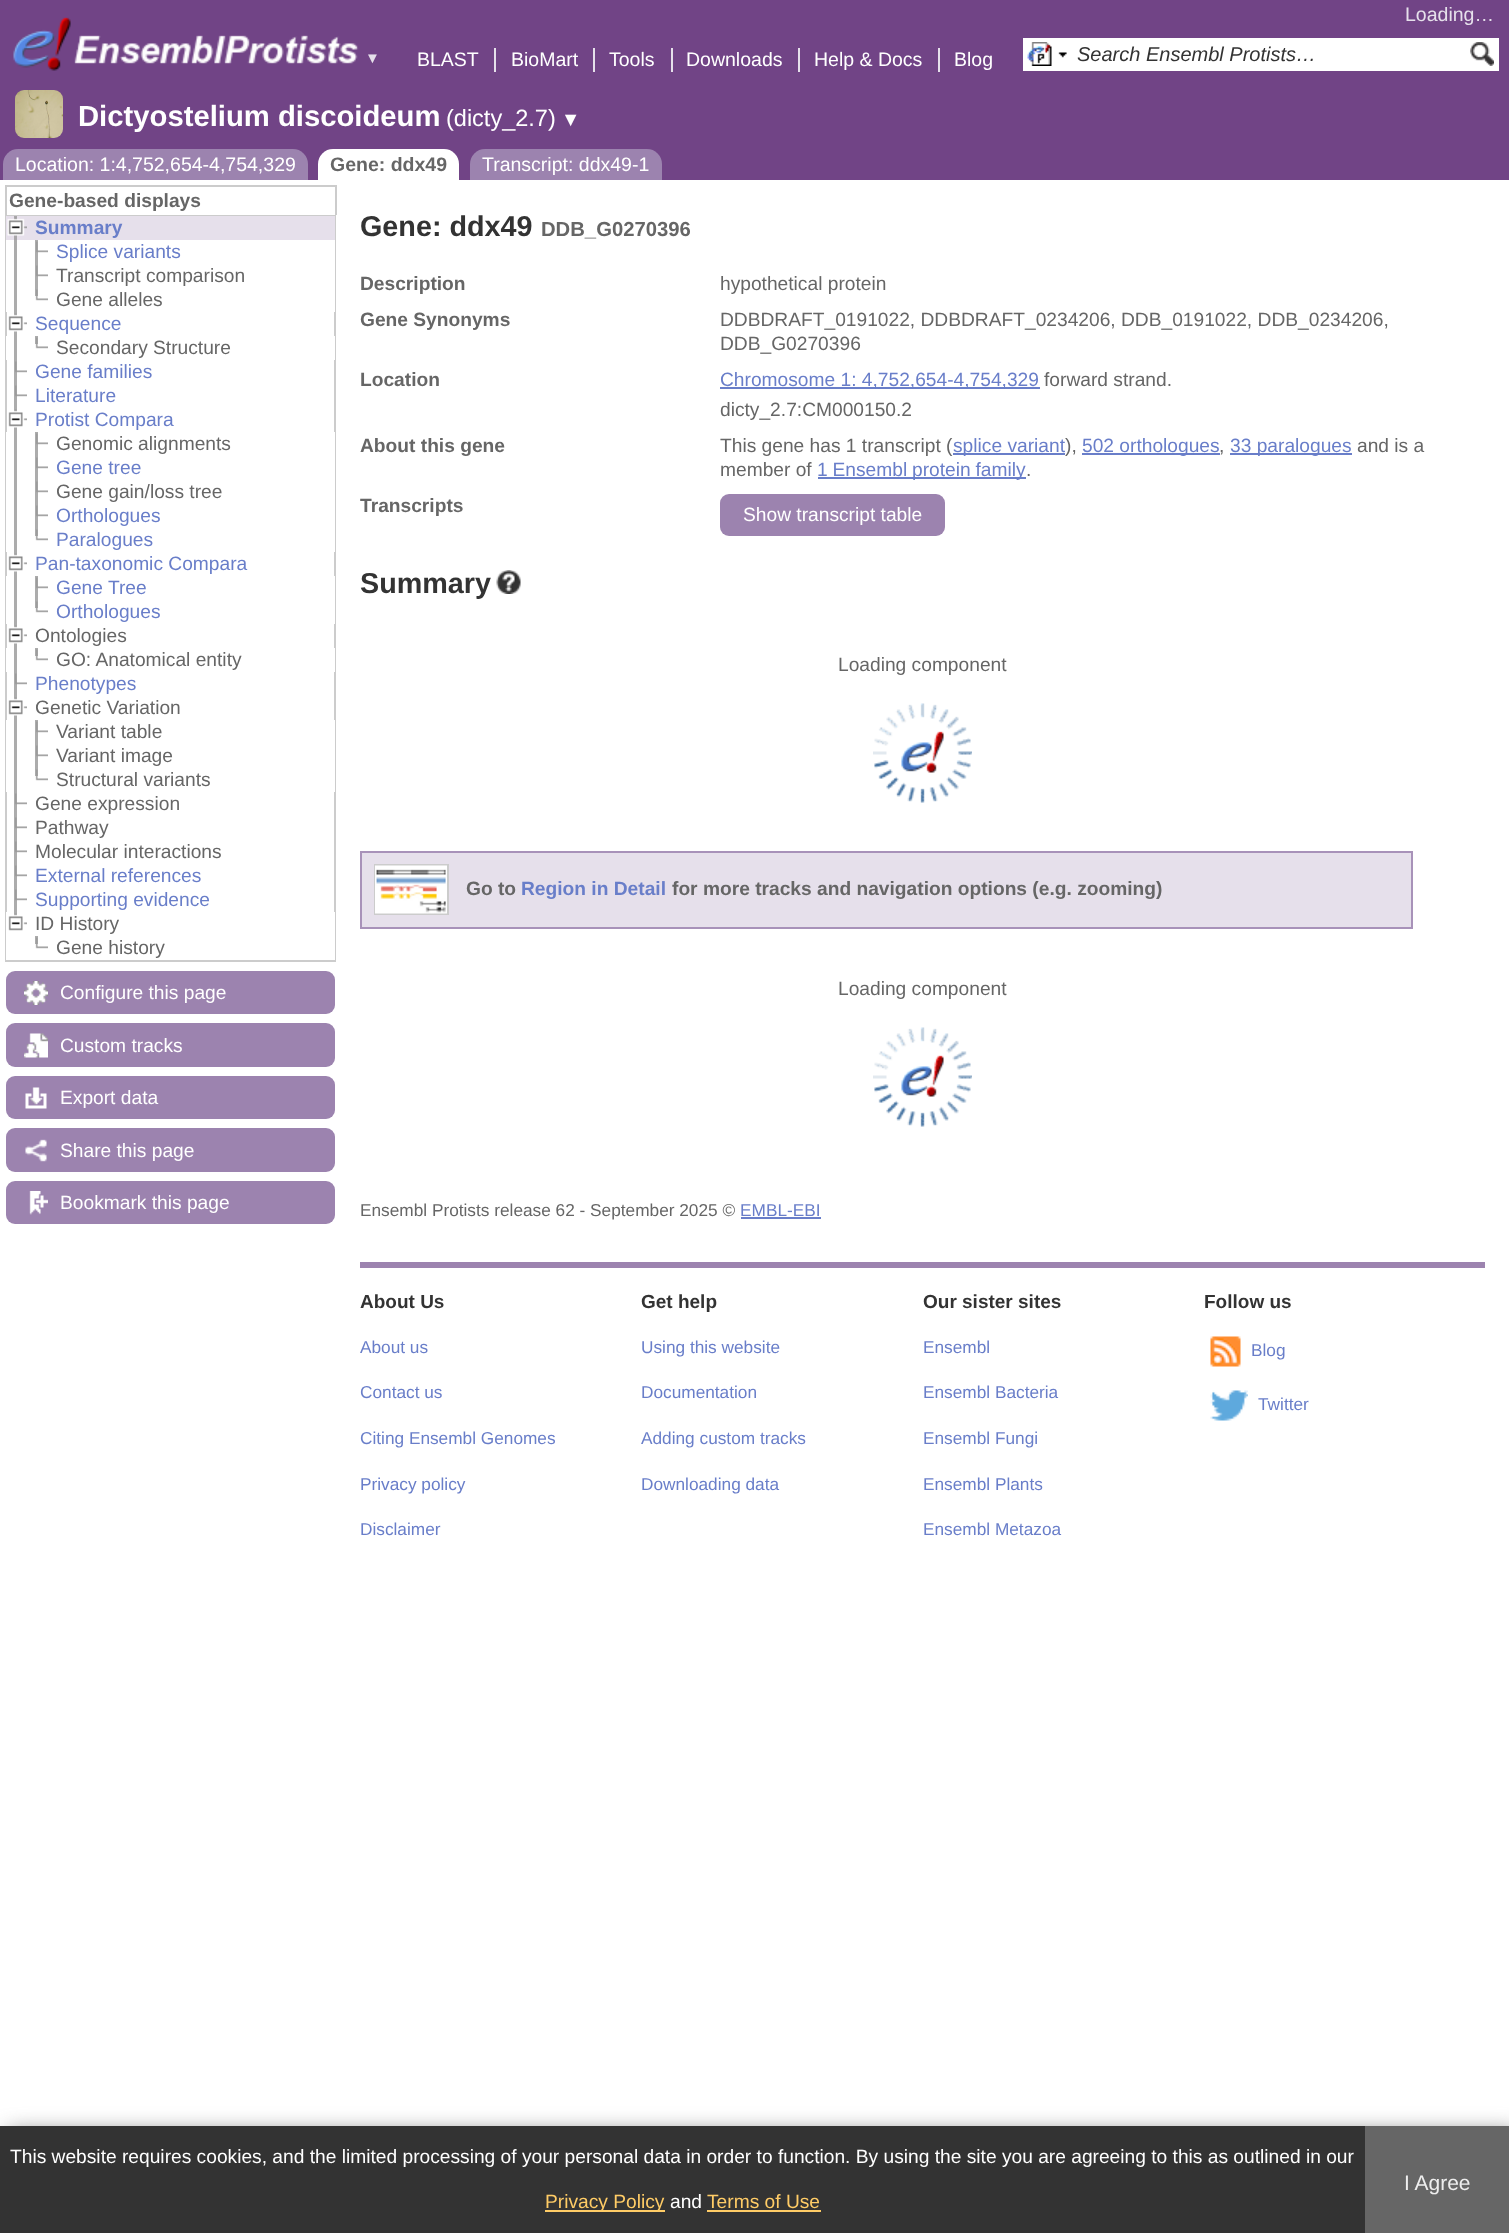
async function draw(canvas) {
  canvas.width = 1509;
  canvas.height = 2233;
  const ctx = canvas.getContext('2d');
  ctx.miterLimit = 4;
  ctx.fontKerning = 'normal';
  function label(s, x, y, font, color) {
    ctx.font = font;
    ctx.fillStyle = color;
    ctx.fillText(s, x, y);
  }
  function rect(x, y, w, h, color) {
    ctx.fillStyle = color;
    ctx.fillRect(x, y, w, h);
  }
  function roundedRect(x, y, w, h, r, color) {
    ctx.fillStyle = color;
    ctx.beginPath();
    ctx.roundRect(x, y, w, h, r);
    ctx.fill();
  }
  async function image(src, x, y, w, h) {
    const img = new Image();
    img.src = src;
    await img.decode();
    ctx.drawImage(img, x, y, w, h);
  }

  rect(0, 0, 1509, 2233, '#fff');
  rect(0, 0, 1509, 180, '#714486');
  await image('assets/img1.png', 13, 17, 58, 54);
  await image('assets/img2.png', 74, 35, 285, 29);
  label('▼', 365, 63, '15px Liberation Sans', '#e6e0eb');
  label('Loading…', 1405, 21, '19.5px Liberation Sans', '#e6e0eb');
  rect(494, 48, 2, 24, '#e6e0eb');
  label('BLAST', 417, 66, '19.5px Liberation Sans', '#fff');
  rect(593, 48, 2, 24, '#e6e0eb');
  label('BioMart', 511, 66, '19.5px Liberation Sans', '#fff');
  rect(671, 48, 2, 24, '#e6e0eb');
  label('Tools', 609, 66, '19.5px Liberation Sans', '#fff');
  rect(798, 48, 2, 24, '#e6e0eb');
  label('Downloads', 686, 66, '19.5px Liberation Sans', '#fff');
  rect(938, 48, 2, 24, '#e6e0eb');
  label('Help & Docs', 814, 66, '19.5px Liberation Sans', '#fff');
  label('Blog', 954, 66, '19.5px Liberation Sans', '#fff');
  rect(1023, 38, 476, 33, '#fff');
  await image('assets/img3.png', 1027, 42, 25, 24);
  await image('assets/img4.png', 1058, 52, 9, 6);
  label('Search Ensembl Protists…', 1077, 61, 'italic 20px Liberation Sans', '#333');
  await image('assets/img5.png', 1470, 42, 24, 24);
  await image('assets/img6.png', 15, 90, 48, 48);
  label('Dictyostelium discoideum', 78, 126, 'bold 29.25px Liberation Sans', '#fff');
  label('(dicty_2.7)', 446, 126, '23.5px Liberation Sans', '#fff');
  label('▼', 561, 126, '19.5px Liberation Sans', '#fff');
  ctx.fillStyle = '#9c83af';
  ctx.beginPath();
  ctx.roundRect(3, 149, 305, 31, [15, 15, 0, 0]);
  ctx.fill();
  label('Location: 1:4,752,654-4,754,329', 15, 171, '19.5px Liberation Sans', '#fff');
  ctx.beginPath();
  ctx.roundRect(318, 149, 141, 31, [15, 15, 0, 0]);
  ctx.fill();
  label('Gene: ddx49', 330, 171, 'bold 19.5px Liberation Sans', '#666');
  ctx.fillStyle = '#9c83af';
  ctx.beginPath();
  ctx.roundRect(470, 149, 192, 31, [15, 15, 0, 0]);
  ctx.fill();
  label('Transcript: ddx49-1', 482, 171, '19.5px Liberation Sans', '#fff');
  rect(5, 185, 331, 2, '#ccc');
  rect(335, 185, 2, 30, '#ccc');
  rect(5, 185, 2, 30, '#ccc');
  label('Gene-based displays', 9, 207, 'bold 19.2px Liberation Sans', '#666');
  ctx.strokeStyle = '#ccc';
  ctx.lineWidth = 2;
  ctx.strokeRect(6, 216, 329, 745);
  rect(6, 216, 329, 24, '#e6e0eb');
  rect(14, 216, 3, 24, '#a8a6a9');
  await image('assets/img7.png', 7, 217, 20, 19);
  label('Summary', 35, 234, 'bold 19.2px Liberation Sans', '#697ec9');
  rect(6, 240, 329, 72, '#fff');
  rect(14, 240, 3, 96, '#acacac');
  rect(35, 240, 3, 56, '#acacac');
  await image('assets/img8.png', 36, 241, 12, 12);
  label('Splice variants', 56, 258, '19.2px Liberation Sans', '#697ec9');
  await image('assets/img8.png', 36, 265, 12, 12);
  label('Transcript comparison', 56, 282, '19.2px Liberation Sans', '#666');
  await image('assets/img9.png', 35, 289, 13, 12);
  label('Gene alleles', 56, 306, '19.2px Liberation Sans', '#666');
  await image('assets/img10.png', 8, 313, 19, 19);
  label('Sequence', 35, 330, '19.2px Liberation Sans', '#697ec9');
  rect(6, 336, 329, 24, '#fff');
  rect(14, 336, 3, 96, '#acacac');
  rect(35, 336, 3, 8, '#acacac');
  await image('assets/img9.png', 35, 337, 13, 12);
  label('Secondary Structure', 56, 354, '19.2px Liberation Sans', '#666');
  await image('assets/img8.png', 15, 361, 12, 12);
  label('Gene families', 35, 378, '19.2px Liberation Sans', '#697ec9');
  await image('assets/img8.png', 15, 385, 12, 12);
  label('Literature', 35, 402, '19.2px Liberation Sans', '#697ec9');
  await image('assets/img10.png', 8, 409, 19, 19);
  label('Protist Compara', 35, 426, '19.2px Liberation Sans', '#697ec9');
  rect(6, 432, 329, 120, '#fff');
  rect(14, 432, 3, 144, '#acacac');
  rect(35, 432, 3, 104, '#acacac');
  await image('assets/img8.png', 36, 433, 12, 12);
  label('Genomic alignments', 56, 450, '19.2px Liberation Sans', '#666');
  await image('assets/img8.png', 36, 457, 12, 12);
  label('Gene tree', 56, 474, '19.2px Liberation Sans', '#697ec9');
  await image('assets/img8.png', 36, 481, 12, 12);
  label('Gene gain/loss tree', 56, 498, '19.2px Liberation Sans', '#666');
  await image('assets/img8.png', 36, 505, 12, 12);
  label('Orthologues', 56, 522, '19.2px Liberation Sans', '#697ec9');
  await image('assets/img9.png', 35, 529, 13, 12);
  label('Paralogues', 56, 546, '19.2px Liberation Sans', '#697ec9');
  await image('assets/img10.png', 8, 553, 19, 19);
  label('Pan-taxonomic Compara', 35, 570, '19.2px Liberation Sans', '#697ec9');
  rect(6, 576, 329, 48, '#fff');
  rect(14, 576, 3, 72, '#acacac');
  rect(35, 576, 3, 32, '#acacac');
  await image('assets/img8.png', 36, 577, 12, 12);
  label('Gene Tree', 56, 594, '19.2px Liberation Sans', '#697ec9');
  await image('assets/img9.png', 35, 601, 13, 12);
  label('Orthologues', 56, 618, '19.2px Liberation Sans', '#697ec9');
  await image('assets/img10.png', 8, 625, 19, 19);
  label('Ontologies', 35, 642, '19.2px Liberation Sans', '#666');
  rect(6, 648, 329, 24, '#fff');
  rect(14, 648, 3, 72, '#acacac');
  rect(35, 648, 3, 8, '#acacac');
  await image('assets/img9.png', 35, 649, 13, 12);
  label('GO: Anatomical entity', 56, 666, '19.2px Liberation Sans', '#666');
  await image('assets/img8.png', 15, 673, 12, 12);
  label('Phenotypes', 35, 690, '19.2px Liberation Sans', '#697ec9');
  await image('assets/img10.png', 8, 697, 19, 19);
  label('Genetic Variation', 35, 714, '19.2px Liberation Sans', '#666');
  rect(6, 720, 329, 72, '#fff');
  rect(14, 720, 3, 192, '#acacac');
  rect(35, 720, 3, 56, '#acacac');
  await image('assets/img8.png', 36, 721, 12, 12);
  label('Variant table', 56, 738, '19.2px Liberation Sans', '#666');
  await image('assets/img8.png', 36, 745, 12, 12);
  label('Variant image', 56, 762, '19.2px Liberation Sans', '#666');
  await image('assets/img9.png', 35, 769, 13, 12);
  label('Structural variants', 56, 786, '19.2px Liberation Sans', '#666');
  await image('assets/img8.png', 15, 793, 12, 12);
  label('Gene expression', 35, 810, '19.2px Liberation Sans', '#666');
  await image('assets/img8.png', 15, 817, 12, 12);
  label('Pathway', 35, 834, '19.2px Liberation Sans', '#666');
  await image('assets/img8.png', 15, 841, 12, 12);
  label('Molecular interactions', 35, 858, '19.2px Liberation Sans', '#666');
  await image('assets/img8.png', 15, 865, 12, 12);
  label('External references', 35, 882, '19.2px Liberation Sans', '#697ec9');
  await image('assets/img8.png', 15, 889, 12, 12);
  label('Supporting evidence', 35, 906, '19.2px Liberation Sans', '#697ec9');
  rect(6, 912, 329, 48, '#fff');
  rect(14, 912, 3, 8, '#acacac');
  await image('assets/img11.png', 8, 913, 19, 18);
  label('ID History', 35, 930, '19.2px Liberation Sans', '#666');
  rect(35, 936, 3, 8, '#acacac');
  await image('assets/img9.png', 35, 937, 13, 12);
  label('Gene history', 56, 954, '19.2px Liberation Sans', '#666');
  roundedRect(6, 971, 329, 43, 9, '#9c83af');
  await image('assets/img12.png', 24, 981, 24, 24);
  label('Configure this page', 60, 999, '19.2px Liberation Sans', '#fff');
  roundedRect(6, 1023, 329, 44, 9, '#9c83af');
  await image('assets/img13.png', 24, 1033, 24, 25);
  label('Custom tracks', 60, 1052, '19.2px Liberation Sans', '#fff');
  roundedRect(6, 1076, 329, 43, 9, '#9c83af');
  await image('assets/img14.png', 25, 1087, 22, 22);
  label('Export data', 60, 1104, '19.2px Liberation Sans', '#fff');
  roundedRect(6, 1128, 329, 44, 9, '#9c83af');
  await image('assets/img15.png', 25, 1139, 22, 23);
  label('Share this page', 60, 1157, '19.2px Liberation Sans', '#fff');
  roundedRect(6, 1181, 329, 43, 9, '#9c83af');
  await image('assets/img16.png', 29, 1191, 19, 24);
  label('Bookmark this page', 60, 1209, '19.2px Liberation Sans', '#fff');
  label('Gene: ddx49', 360, 236, 'bold 28.75px Liberation Sans', '#333');
  label('DDB_G0270396', 541, 236, 'bold 20.25px Liberation Sans', '#666');
  label('Description', 360, 290, 'bold 19.2px Liberation Sans', '#666');
  label('hypothetical protein', 720, 290, '19.2px Liberation Sans', '#666');
  label('Gene Synonyms', 360, 326, 'bold 19.2px Liberation Sans', '#666');
  label('DDBDRAFT_0191022, DDBDRAFT_0234206, DDB_0191022, DDB_0234206,', 720, 326, '19.2px Liberation Sans', '#666');
  label('DDB_G0270396', 720, 350, '19.2px Liberation Sans', '#666');
  label('Location', 360, 386, 'bold 19.2px Liberation Sans', '#666');
  rect(720, 387, 320, 2, '#697ec9');
  label('Chromosome 1: 4,752,654-4,754,329', 720, 386, '19.2px Liberation Sans', '#697ec9');
  label('forward strand.', 1044, 386, '19.2px Liberation Sans', '#666');
  label('dicty_2.7:CM000150.2', 720, 416, '19.2px Liberation Sans', '#666');
  label('About this gene', 360, 452, 'bold 19.2px Liberation Sans', '#666');
  label('This gene has 1 transcript (', 720, 452, '19.2px Liberation Sans', '#666');
  rect(953, 453, 112, 2, '#697ec9');
  label('splice variant', 953, 452, '19.2px Liberation Sans', '#697ec9');
  label('),', 1065, 452, '19.2px Liberation Sans', '#666');
  rect(1082, 453, 138, 2, '#697ec9');
  label('502 orthologues', 1082, 452, '19.2px Liberation Sans', '#697ec9');
  label(',', 1219, 452, '19.2px Liberation Sans', '#666');
  rect(1230, 453, 122, 2, '#697ec9');
  label('33 paralogues', 1230, 452, '19.2px Liberation Sans', '#697ec9');
  label('and is a', 1357, 452, '19.2px Liberation Sans', '#666');
  label('member of', 720, 476, '19.2px Liberation Sans', '#666');
  rect(818, 477, 208, 2, '#697ec9');
  ctx.wordSpacing = '-0.5px';
  label('1 Ensembl protein family', 817, 476, '19.2px Liberation Sans', '#697ec9');
  ctx.wordSpacing = '0px';
  label('.', 1026, 476, '19.2px Liberation Sans', '#666');
  label('Transcripts', 360, 512, 'bold 19.2px Liberation Sans', '#666');
  roundedRect(720, 494, 225, 42, 9, '#9c83af');
  label('Show transcript table', 743, 521, '19.2px Liberation Sans', '#fff');
  label('Summary', 360, 593, 'bold 28.75px Liberation Sans', '#333');
  await image('assets/img17.png', 496, 570, 25, 24);
  await image('assets/img18.png', 873, 703, 99, 100);
  label('Loading component', 838, 671, '19.2px Liberation Sans', '#666');
  ctx.fillStyle = '#e6e0eb';
  ctx.beginPath();
  ctx.rect(361, 852, 1051, 76);
  ctx.fill();
  ctx.strokeStyle = '#a892b9';
  ctx.stroke();
  ctx.strokeStyle = '#ccc';
  ctx.strokeRect(375, 865, 73, 49);
  await image('assets/img19.png', 375, 865, 72, 49);
  label('Go to', 466, 895, 'bold 19.2px Liberation Sans', '#666');
  label('Region in Detail', 521, 895, 'bold 19.2px Liberation Sans', '#697ec9');
  label('for more tracks and navigation options (e.g. zooming)', 672, 895, 'bold 19.2px Liberation Sans', '#666');
  await image('assets/img18.png', 873, 1027, 99, 100);
  label('Loading component', 838, 995, '19.2px Liberation Sans', '#666');
  label('Ensembl Protists release 62 - September 2025 ©', 360, 1216, '17.25px Liberation Sans', '#666');
  label('EMBL-EBI', 740, 1216, '17.25px Liberation Sans', '#697ec9');
  rect(741, 1217, 80, 2, '#697ec9');
  rect(360, 1262, 1125, 6, '#9c83af');
  label('About Us', 360, 1308, 'bold 19px Liberation Sans', '#333');
  label('About us', 360, 1353, '17.25px Liberation Sans', '#697ec9');
  label('Contact us', 360, 1398, '17.25px Liberation Sans', '#697ec9');
  label('Citing Ensembl Genomes', 360, 1444, '17.25px Liberation Sans', '#697ec9');
  label('Privacy policy', 360, 1490, '17.25px Liberation Sans', '#697ec9');
  label('Disclaimer', 360, 1535, '17.25px Liberation Sans', '#697ec9');
  label('Get help', 641, 1308, 'bold 19px Liberation Sans', '#333');
  label('Using this website', 641, 1353, '17.25px Liberation Sans', '#697ec9');
  label('Documentation', 641, 1398, '17.25px Liberation Sans', '#697ec9');
  label('Adding custom tracks', 641, 1444, '17.25px Liberation Sans', '#697ec9');
  label('Downloading data', 641, 1490, '17.25px Liberation Sans', '#697ec9');
  label('Our sister sites', 923, 1308, 'bold 19px Liberation Sans', '#333');
  label('Ensembl', 923, 1353, '17.25px Liberation Sans', '#697ec9');
  label('Ensembl Bacteria', 923, 1398, '17.25px Liberation Sans', '#697ec9');
  label('Ensembl Fungi', 923, 1444, '17.25px Liberation Sans', '#697ec9');
  label('Ensembl Plants', 923, 1490, '17.25px Liberation Sans', '#697ec9');
  label('Ensembl Metazoa', 923, 1535, '17.25px Liberation Sans', '#697ec9');
  label('Follow us', 1204, 1308, 'bold 19px Liberation Sans', '#333');
  await image('assets/img20.png', 1210, 1336, 31, 31);
  label('Blog', 1251, 1356, '17.25px Liberation Sans', '#697ec9');
  await image('assets/img21.png', 1210, 1390, 38, 31);
  label('Twitter', 1258, 1410, '17.25px Liberation Sans', '#697ec9');
  ctx.fillStyle = '#666';
  ctx.filter = 'blur(11px)';
  ctx.beginPath();
  ctx.rect(8, 2133, 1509, 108);
  ctx.fill();
  ctx.filter = 'none';
  rect(0, 2126, 1365, 107, '#333');
  label('This website requires cookies, and the limited processing of your personal data in order to function. By using the site you are agreeing to this as outlined in our', 10, 2163, '19.2px Liberation Sans', '#fff');
  rect(545, 2210, 120, 2, '#fc6');
  label('Privacy Policy', 545, 2208, '19.2px Liberation Sans', '#fc6');
  label('and', 670, 2208, '19.2px Liberation Sans', '#fff');
  label('Terms of Use', 707, 2208, '19.2px Liberation Sans', '#fc6');
  rect(707, 2210, 114, 2, '#fc6');
  rect(1365, 2126, 144, 107, '#666');
  label('I Agree', 1404, 2190, '21px Liberation Sans', '#eee');
}

draw(document.querySelector('canvas'));
